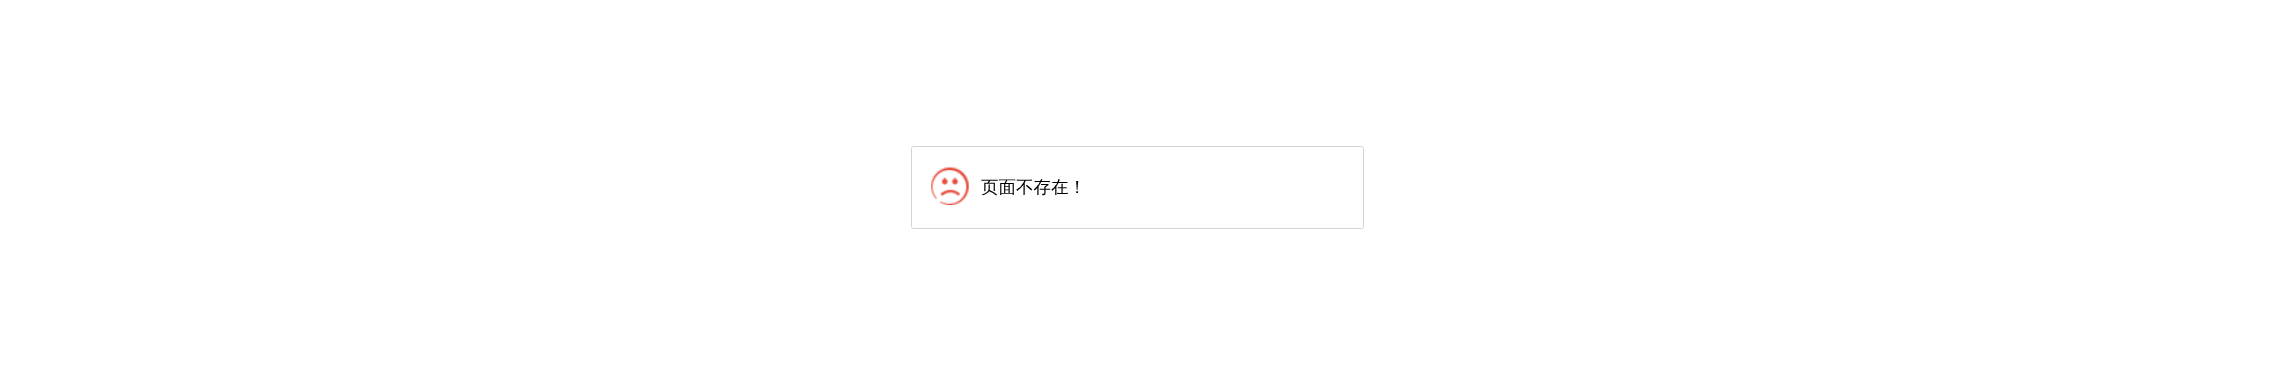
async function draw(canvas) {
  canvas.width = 2275;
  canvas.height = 375;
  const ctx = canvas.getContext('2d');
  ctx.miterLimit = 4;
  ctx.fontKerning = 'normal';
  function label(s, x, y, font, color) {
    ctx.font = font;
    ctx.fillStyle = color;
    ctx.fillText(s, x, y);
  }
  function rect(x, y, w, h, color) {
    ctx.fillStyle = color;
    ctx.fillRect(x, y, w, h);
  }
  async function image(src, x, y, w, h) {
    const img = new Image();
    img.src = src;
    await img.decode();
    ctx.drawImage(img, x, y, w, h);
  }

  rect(0, 0, 2275, 375, '#fff');
  ctx.beginPath();
  ctx.roundRect(911.5, 146.5, 452, 82, 2);
  ctx.strokeStyle = '#d3d4d3';
  ctx.stroke();
  await image('assets/img1.png', 931, 167, 38, 38);
  label('页面不存在！', 981, 193, '500 17.5px WenQuanYi Zen Hei', '#000');
}

draw(document.querySelector('canvas'));
